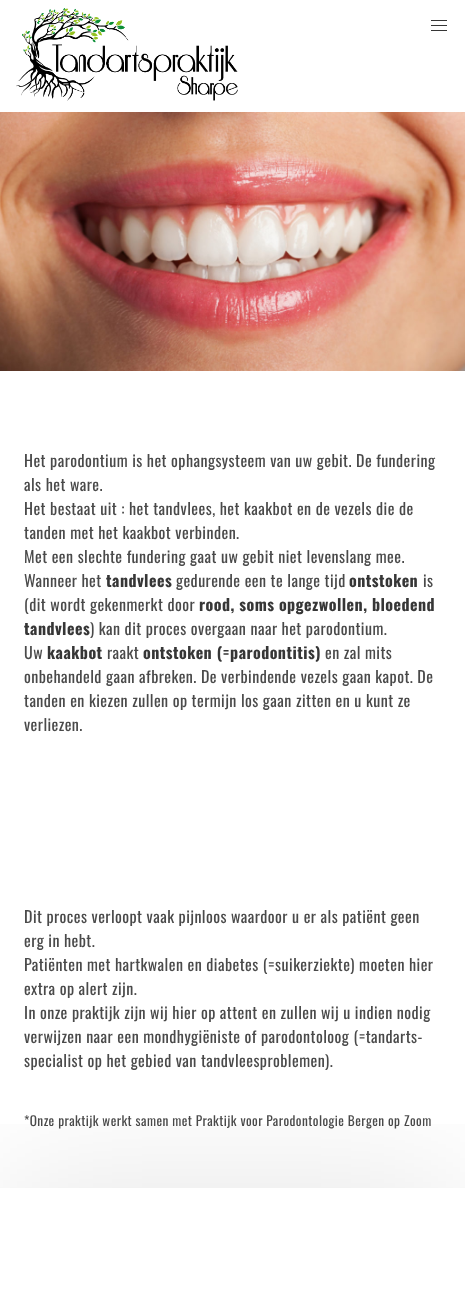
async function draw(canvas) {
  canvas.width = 465;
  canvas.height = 1304;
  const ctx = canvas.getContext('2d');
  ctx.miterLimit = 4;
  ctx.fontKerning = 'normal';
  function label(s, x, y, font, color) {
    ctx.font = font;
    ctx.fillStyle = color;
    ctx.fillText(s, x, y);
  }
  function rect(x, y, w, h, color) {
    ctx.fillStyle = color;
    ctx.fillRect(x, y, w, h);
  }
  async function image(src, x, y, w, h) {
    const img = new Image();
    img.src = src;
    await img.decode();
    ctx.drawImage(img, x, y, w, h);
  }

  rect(0, 0, 465, 1304, '#fff');
  await image('assets/img1.png', 16, 8, 222, 93);
  rect(431, 20, 16, 1, '#363636');
  rect(431, 25, 16, 1, '#363636');
  rect(431, 30, 16, 1, '#363636');
  await image('assets/img2.png', 0, 112, 465, 259);
  ctx.letterSpacing = '0.45px';
  label('Het parodontium is het ophangsysteem van uw gebit. De fundering', 24, 467, '16px Oswald', '#4a4a4a');
  label('als het ware.', 24, 491, '16px Oswald', '#4a4a4a');
  label('Het bestaat uit : het tandvlees, het kaakbot en de vezels die de', 24, 515, '16px Oswald', '#4a4a4a');
  label('tanden met het kaakbot verbinden.', 24, 539, '16px Oswald', '#4a4a4a');
  label('Met een slechte fundering gaat uw gebit niet levenslang mee.', 24, 563, '16px Oswald', '#4a4a4a');
  label('Wanneer het', 24, 587, '16px Oswald', '#4a4a4a');
  label('tandvlees', 106, 587, 'bold 16px Oswald', '#363636');
  label('gedurende een te lange tijd', 176, 587, '16px Oswald', '#4a4a4a');
  label('ontstoken', 349, 587, 'bold 16px Oswald', '#363636');
  label('is', 423, 587, '16px Oswald', '#4a4a4a');
  label('(dit wordt gekenmerkt door', 24, 611, '16px Oswald', '#4a4a4a');
  label('rood, soms opgezwollen, bloedend', 199, 611, 'bold 16px Oswald', '#363636');
  label('tandvlees', 24, 635, 'bold 16px Oswald', '#363636');
  label(') kan dit proces overgaan naar het parodontium.', 90, 635, '16px Oswald', '#4a4a4a');
  label('Uw', 24, 659, '16px Oswald', '#4a4a4a');
  label('kaakbot', 47, 659, 'bold 16px Oswald', '#363636');
  label('raakt', 107, 659, '16px Oswald', '#4a4a4a');
  label('ontstoken (=parodontitis)', 143, 659, 'bold 16px Oswald', '#363636');
  label('en zal mits', 325, 659, '16px Oswald', '#4a4a4a');
  label('onbehandeld gaan afbreken. De verbindende vezels gaan kapot. De', 24, 683, '16px Oswald', '#4a4a4a');
  label('tanden en kiezen zullen op termijn los gaan zitten en u kunt ze', 24, 707, '16px Oswald', '#4a4a4a');
  label('verliezen.', 24, 731, '16px Oswald', '#4a4a4a');
  label('Dit proces verloopt vaak pijnloos waardoor u er als patiënt geen', 24, 923, '16px Oswald', '#4a4a4a');
  label('erg in hebt.', 24, 947, '16px Oswald', '#4a4a4a');
  label('Patiënten met hartkwalen en diabetes (=suikerziekte) moeten hier', 24, 971, '16px Oswald', '#4a4a4a');
  label('extra op alert zijn.', 24, 995, '16px Oswald', '#4a4a4a');
  label('In onze praktijk zijn wij hier op attent en zullen wij u indien nodig', 24, 1019, '16px Oswald', '#4a4a4a');
  label('verwijzen naar een mondhygiëniste of parodontoloog (=tandarts-', 24, 1043, '16px Oswald', '#4a4a4a');
  label('specialist op het gebied van tandvleesproblemen).', 24, 1067, '16px Oswald', '#4a4a4a');
  label('*Onze praktijk werkt samen met Praktijk voor Parodontologie Bergen op Zoom', 24, 1126, '13.3px Oswald', '#4a4a4a');
  ctx.save();
  ctx.beginPath();
  ctx.rect(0, 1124, 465, 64);
  ctx.clip();
  ctx.fillStyle = '#0000001a';
  ctx.filter = 'blur(75px)';
  ctx.beginPath();
  ctx.rect(-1, 1187, 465, 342);
  ctx.fill();
  ctx.filter = 'none';
  ctx.restore();
}

draw(document.querySelector('canvas'));
